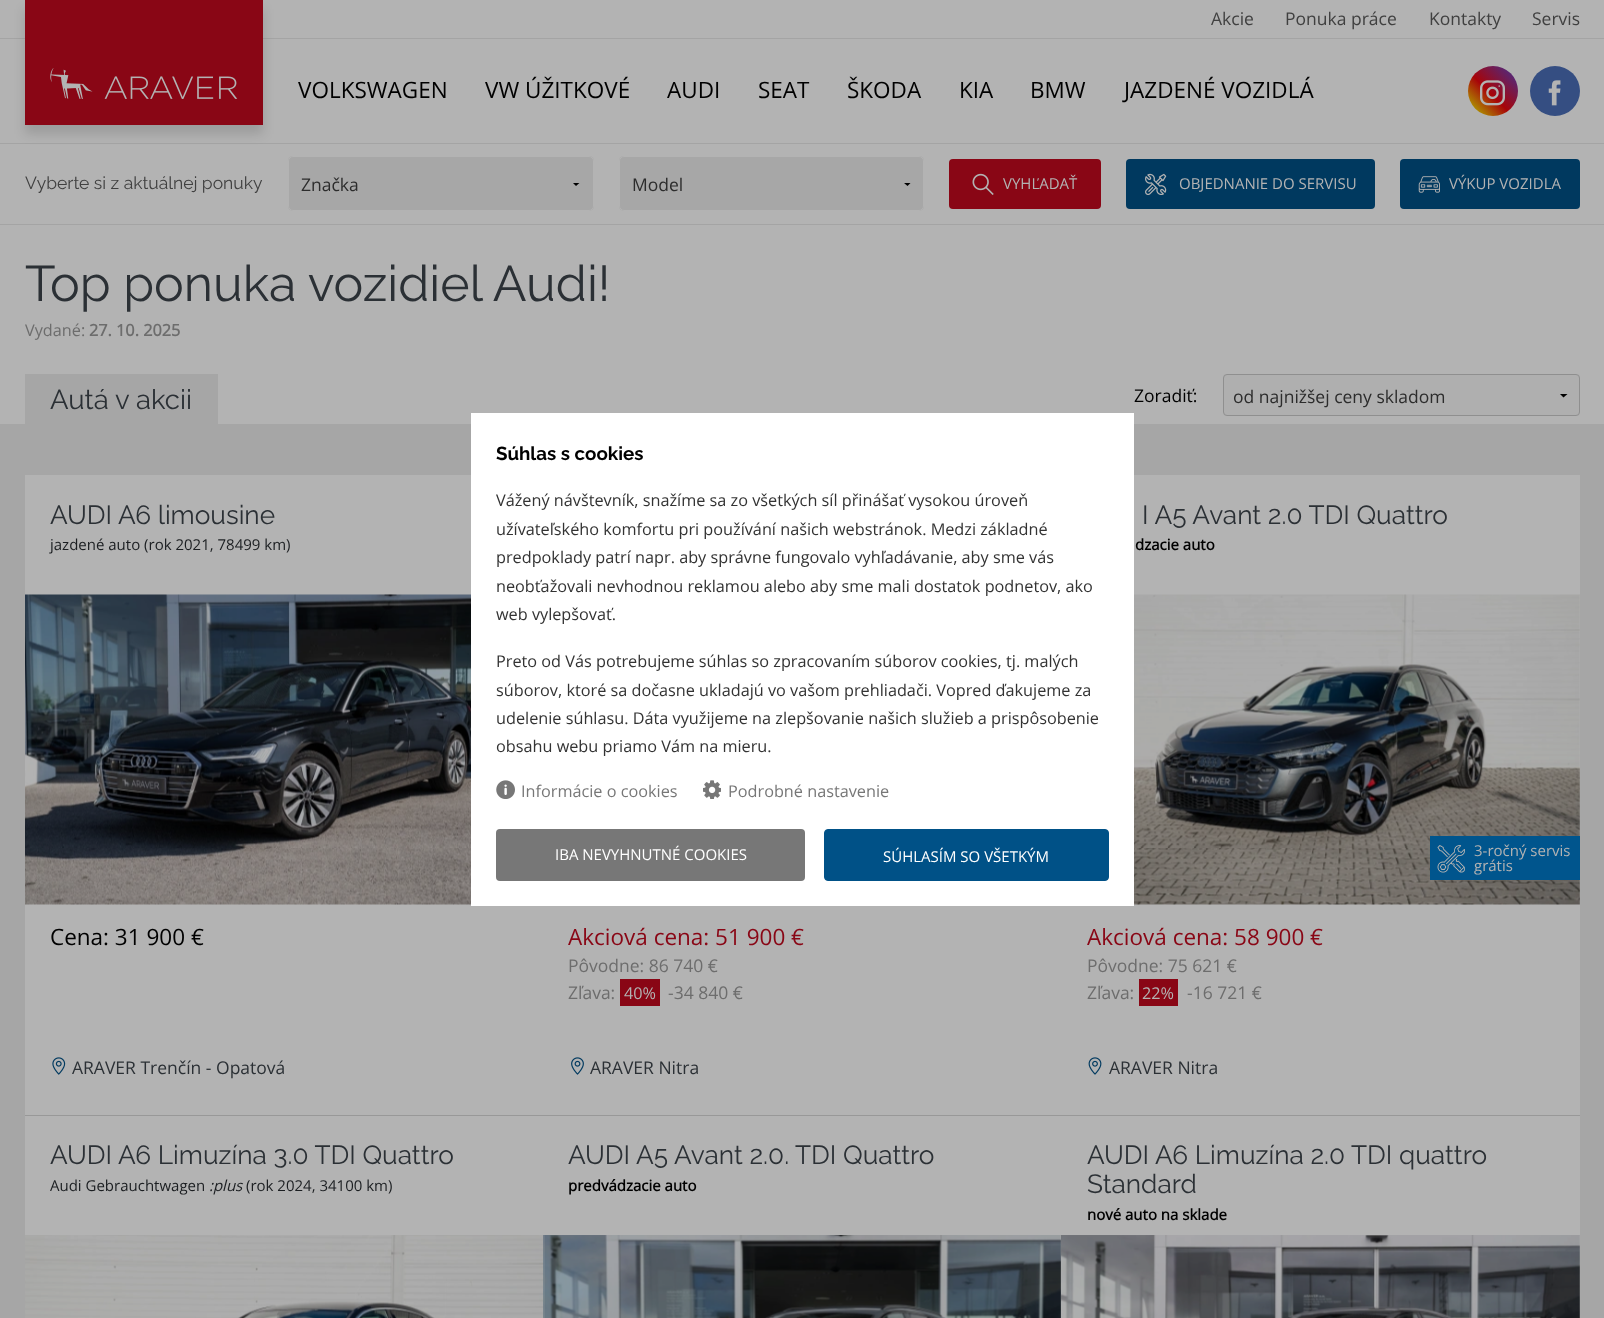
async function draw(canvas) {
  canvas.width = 1604;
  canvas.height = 1318;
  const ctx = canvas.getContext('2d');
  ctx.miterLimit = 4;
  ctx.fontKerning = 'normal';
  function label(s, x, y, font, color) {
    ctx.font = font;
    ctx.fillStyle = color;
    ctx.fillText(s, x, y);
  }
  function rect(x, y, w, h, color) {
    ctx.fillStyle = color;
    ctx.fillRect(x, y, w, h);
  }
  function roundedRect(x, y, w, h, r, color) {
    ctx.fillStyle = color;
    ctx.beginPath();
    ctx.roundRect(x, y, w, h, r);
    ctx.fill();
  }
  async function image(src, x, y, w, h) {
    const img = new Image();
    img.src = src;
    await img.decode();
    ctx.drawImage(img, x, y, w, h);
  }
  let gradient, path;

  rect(0, 0, 1604, 1318, '#b3b3b3');
  label('Akcie', 1211, 25, '17.5px Open Sans', '#404040');
  label('Ponuka práce', 1285, 25, '17.5px Open Sans', '#404040');
  label('Kontakty', 1429, 25, '17.5px Open Sans', '#404040');
  label('Servis', 1532, 25, '17.5px Open Sans', '#404040');
  rect(0, 38, 1604, 1, '#a4a4a4');
  rect(0, 143, 1604, 1, '#a4a4a4');
  ctx.fillStyle = '#00000021';
  ctx.filter = 'blur(5.5px)';
  ctx.beginPath();
  ctx.rect(25, 9, 238, 125);
  ctx.fill();
  ctx.filter = 'none';
  rect(25, 0, 238, 125, '#890615');
  await image('assets/img1.png', 50, 68, 188, 31);
  label('VOLKSWAGEN', 298, 98, '22.5px Open Sans', '#000');
  label('VW ÚŽITKOVÉ', 485, 98, '22.5px Open Sans', '#000');
  label('AUDI', 667, 98, '22.5px Open Sans', '#000');
  label('SEAT', 758, 98, '22.5px Open Sans', '#000');
  label('ŠKODA', 847, 98, '22.5px Open Sans', '#000');
  label('KIA', 959, 98, '22.5px Open Sans', '#000');
  label('BMW', 1030, 98, '22.5px Open Sans', '#000');
  label('JAZDENÉ VOZIDLÁ', 1124, 98, '22.5px Open Sans', '#000');
  gradient = ctx.createLinearGradient(1468, 116, 1518, 66);
  gradient.addColorStop(0, '#ad9300');
  gradient.addColorStop(0.12, '#ad9300');
  gradient.addColorStop(0.45, '#a70409');
  gradient.addColorStop(0.88, '#552878');
  gradient.addColorStop(1, '#552878');
  ctx.fillStyle = gradient;
  ctx.beginPath();
  ctx.arc(1493, 91, 25, 0, 2 * Math.PI);
  ctx.fill();
  await image('assets/img2.png', 1480, 80, 25, 26);
  ctx.fillStyle = '#354e82';
  ctx.beginPath();
  ctx.arc(1555, 91, 25, 0, 2 * Math.PI);
  ctx.fill();
  await image('assets/img3.png', 1548, 80, 13, 26);
  rect(0, 224, 1604, 1, '#a4a4a4');
  label('Vyberte si z aktuálnej ponuky', 25, 189, '17.5px Raleway', '#404040');
  roundedRect(288, 156, 306, 55, 5, '#a7a7a7');
  ctx.save();
  ctx.beginPath();
  ctx.rect(561, 183, 30, 4);
  ctx.clip();
  ctx.fillStyle = '#000';
  path = new Path2D('M580 182.5L576 186L572.5 182.5Z');
  ctx.fill(path);
  ctx.restore();
  ctx.beginPath();
  ctx.roundRect(288.5, 156.5, 305, 54, 4.5);
  ctx.strokeStyle = '#b3b3b3';
  ctx.stroke();
  label('Značka', 301, 191, '17.5px Open Sans', '#2c2c2c');
  roundedRect(619, 156, 305, 55, 5, '#a7a7a7');
  ctx.save();
  ctx.beginPath();
  ctx.rect(893, 183, 30, 4);
  ctx.clip();
  ctx.fillStyle = '#000';
  path = new Path2D('M911 182.5L907.5 186L903.5 182.5Z');
  ctx.fill(path);
  ctx.restore();
  ctx.beginPath();
  ctx.roundRect(619.5, 156.5, 304, 54, 4.5);
  ctx.stroke();
  label('Model', 632, 191, '17.5px Open Sans', '#2c2c2c');
  roundedRect(949, 159, 152, 50, 4, '#890615');
  await image('assets/img4.png', 972, 173, 22, 22);
  label('VYHĽADAŤ', 1003, 189, '15px Open Sans', '#b3b3b3');
  roundedRect(1126, 159, 249, 50, 4, '#00395f');
  await image('assets/img5.png', 1145, 173, 22, 23);
  label('OBJEDNANIE DO SERVISU', 1179, 189, '15px Open Sans', '#b3b3b3');
  roundedRect(1400, 159, 180, 50, 4, '#00395f');
  await image('assets/img6.png', 1418, 176, 22, 17);
  label('VÝKUP VOZIDLA', 1449, 189, '15px Open Sans', '#b3b3b3');
  label('Top ponuka vozidiel Audi!', 25, 301, '50px Raleway', '#2b3035');
  label('Vydané:', 25, 336, '16.25px Open Sans', '#6d6d6d');
  label('27. 10. 2025', 89, 336, 'bold 16.25px Open Sans', '#6d6d6d');
  rect(0, 424, 1604, 894, '#a6a6a6');
  rect(25, 374, 193, 50, '#a6a6a6');
  label('Autá v akcii', 50, 409, '27.5px Raleway', '#2b3035');
  label('Zoradiť:', 1134, 402, '17.5px Open Sans', '#000');
  roundedRect(1223, 374, 357, 42, 4, '#afafaf');
  ctx.fillStyle = '#000';
  path = new Path2D('M1567.5 394L1563.5 397.5L1560 394Z');
  ctx.fill(path);
  ctx.beginPath();
  ctx.roundRect(1223.5, 374.5, 356, 41, 3.5);
  ctx.strokeStyle = '#8f8f8f';
  ctx.stroke();
  label('od najnižšej ceny skladom', 1233, 403, '17.5px Open Sans', '#2c2c2c');
  rect(25, 1115, 1555, 1, '#989898');
  rect(25, 475, 519, 640, '#b3b3b3');
  label('AUDI A6 limousine', 50, 524, '26.25px Raleway', '#2b3035');
  label('jazdené auto (rok 2021, 78499 km)', 50, 550, '15px Open Sans', '#1b1e21');
  await image('assets/img7.png', 25, 594, 446, 311);
  label('Cena: 31 900 €', 50, 945, '22.5px Open Sans', '#000');
  await image('assets/img8.png', 52, 1057, 14, 18);
  label('ARAVER Trenčín - Opatová', 72, 1074, '17.5px Open Sans', '#2b3035');
  rect(544, 906, 517, 209, '#b3b3b3');
  label('Akciová cena: 51 900 €', 568, 945, '22.5px Open Sans', '#890615');
  label('Pôvodne: 86 740 €', 568, 972, '17.5px Open Sans', '#6d6d6d');
  label('Zľava:', 568, 999, '17.5px Open Sans', '#6d6d6d');
  rect(620, 979, 40, 27, '#890615');
  label('40%', 624, 999, '16.25px Open Sans', '#b3b3b3');
  label('-34 840 €', 668, 999, '17.5px Open Sans', '#6d6d6d');
  await image('assets/img9.png', 571, 1057, 13, 18);
  label('ARAVER Nitra', 590, 1074, '17.5px Open Sans', '#2b3035');
  rect(1061, 475, 519, 640, '#b3b3b3');
  label('I A5 Avant 2.0 TDI Quattro', 1142, 524, '26.25px Raleway', '#2b3035');
  label('dzacie auto', 1135, 550, 'bold 15px Open Sans', '#000');
  await image('assets/img10.png', 1134, 594, 446, 311);
  rect(1430, 836, 150, 44, '#00558d');
  await image('assets/img11.png', 1437, 845, 28, 28);
  label('3-ročný servis', 1474, 856, '15px Open Sans', '#b3b3b3');
  label('grátis', 1474, 871, '15px Open Sans', '#b3b3b3');
  label('Akciová cena: 58 900 €', 1087, 945, '22.5px Open Sans', '#890615');
  label('Pôvodne: 75 621 €', 1087, 972, '17.5px Open Sans', '#6d6d6d');
  label('Zľava:', 1087, 999, '17.5px Open Sans', '#6d6d6d');
  rect(1139, 979, 39, 27, '#890615');
  label('22%', 1142, 999, '16.25px Open Sans', '#b3b3b3');
  label('-16 721 €', 1187, 999, '17.5px Open Sans', '#6d6d6d');
  await image('assets/img12.png', 1088, 1057, 14, 18);
  label('ARAVER Nitra', 1109, 1074, '17.5px Open Sans', '#2b3035');
  rect(25, 1116, 1555, 202, '#b3b3b3');
  label('AUDI A6 Limuzína 3.0 TDI Quattro', 50, 1164, '26.25px Raleway', '#2b3035');
  label('Audi Gebrauchtwagen', 50, 1191, '15px Open Sans', '#1b1e21');
  label(':plus', 209, 1191, 'italic 15px Open Sans', '#1b1e21');
  label('(rok 2024, 34100 km)', 246, 1191, '15px Open Sans', '#1b1e21');
  await image('assets/img13.png', 25, 1235, 519, 83);
  label('AUDI', 568, 1164, '26.25px Raleway', '#2b3035');
  label('A5 Avant 2.0. TDI Quattro', 636, 1164, '26.25px Raleway', '#2b3035');
  label('predvádzacie auto', 568, 1191, 'bold 15px Open Sans', '#000');
  await image('assets/img14.png', 543, 1235, 518, 83);
  label('AUDI A6 Limuzína 2.0 TDI quattro', 1087, 1164, '26.25px Raleway', '#2b3035');
  label('Standard', 1087, 1193, '26.25px Raleway', '#2b3035');
  label('nové auto na sklade', 1087, 1220, 'bold 15px Open Sans', '#000');
  await image('assets/img15.png', 1061, 1235, 519, 83);
  rect(471, 413, 663, 493, '#fff');
  label('Súhlas s cookies', 496, 460, 'bold 18.75px Raleway', '#000');
  label('Vážený návštevník, snažíme sa zo všetkých síl přinášať vysokou úroveň', 496, 506, '16.25px Open Sans', '#333');
  label('užívateľského komfortu pri používání našich webstránok. Medzi základné', 496, 535, '16.25px Open Sans', '#333');
  label('predpoklady patrí napr. aby správne fungovalo vyhľadávanie, aby sme vás', 496, 563, '16.25px Open Sans', '#333');
  label('neobťažovali nevhodnou reklamou alebo aby sme mali dostatok podnetov, ako', 496, 592, '16.25px Open Sans', '#333');
  label('web vylepšovať.', 496, 620, '16.25px Open Sans', '#333');
  label('Preto od Vás potrebujeme súhlas so zpracovaním súborov cookies, tj. malých', 496, 667, '16.25px Open Sans', '#333');
  label('súborov, ktoré sa dočasne ukladajú vo vašom prehliadači. Vopred ďakujeme za', 496, 696, '16.25px Open Sans', '#333');
  label('udelenie súhlasu. Dáta využijeme na zlepšovanie našich služieb a prispôsobenie', 496, 724, '16.25px Open Sans', '#333');
  label('obsahu webu priamo Vám na mieru.', 496, 752, '16.25px Open Sans', '#333');
  await image('assets/img16.png', 496, 780, 19, 19);
  label('Informácie o cookies', 521, 797, '16.25px Open Sans', '#777');
  await image('assets/img17.png', 703, 780, 18, 19);
  label('Podrobné nastavenie', 728, 797, '16.25px Open Sans', '#777');
  roundedRect(496, 829, 309, 52, 4, '#777');
  label('IBA NEVYHNUTNÉ COOKIES', 555, 860, '15px Open Sans', '#fff');
  ctx.fillStyle = '#005187';
  ctx.beginPath();
  ctx.roundRect(824.5, 829.5, 284, 51, 3.5);
  ctx.fill();
  ctx.strokeStyle = '#005187';
  ctx.stroke();
  label('SÚHLASÍM SO VŠETKÝM', 883, 862, '15px Open Sans', '#fff');
}

draw(document.querySelector('canvas'));
